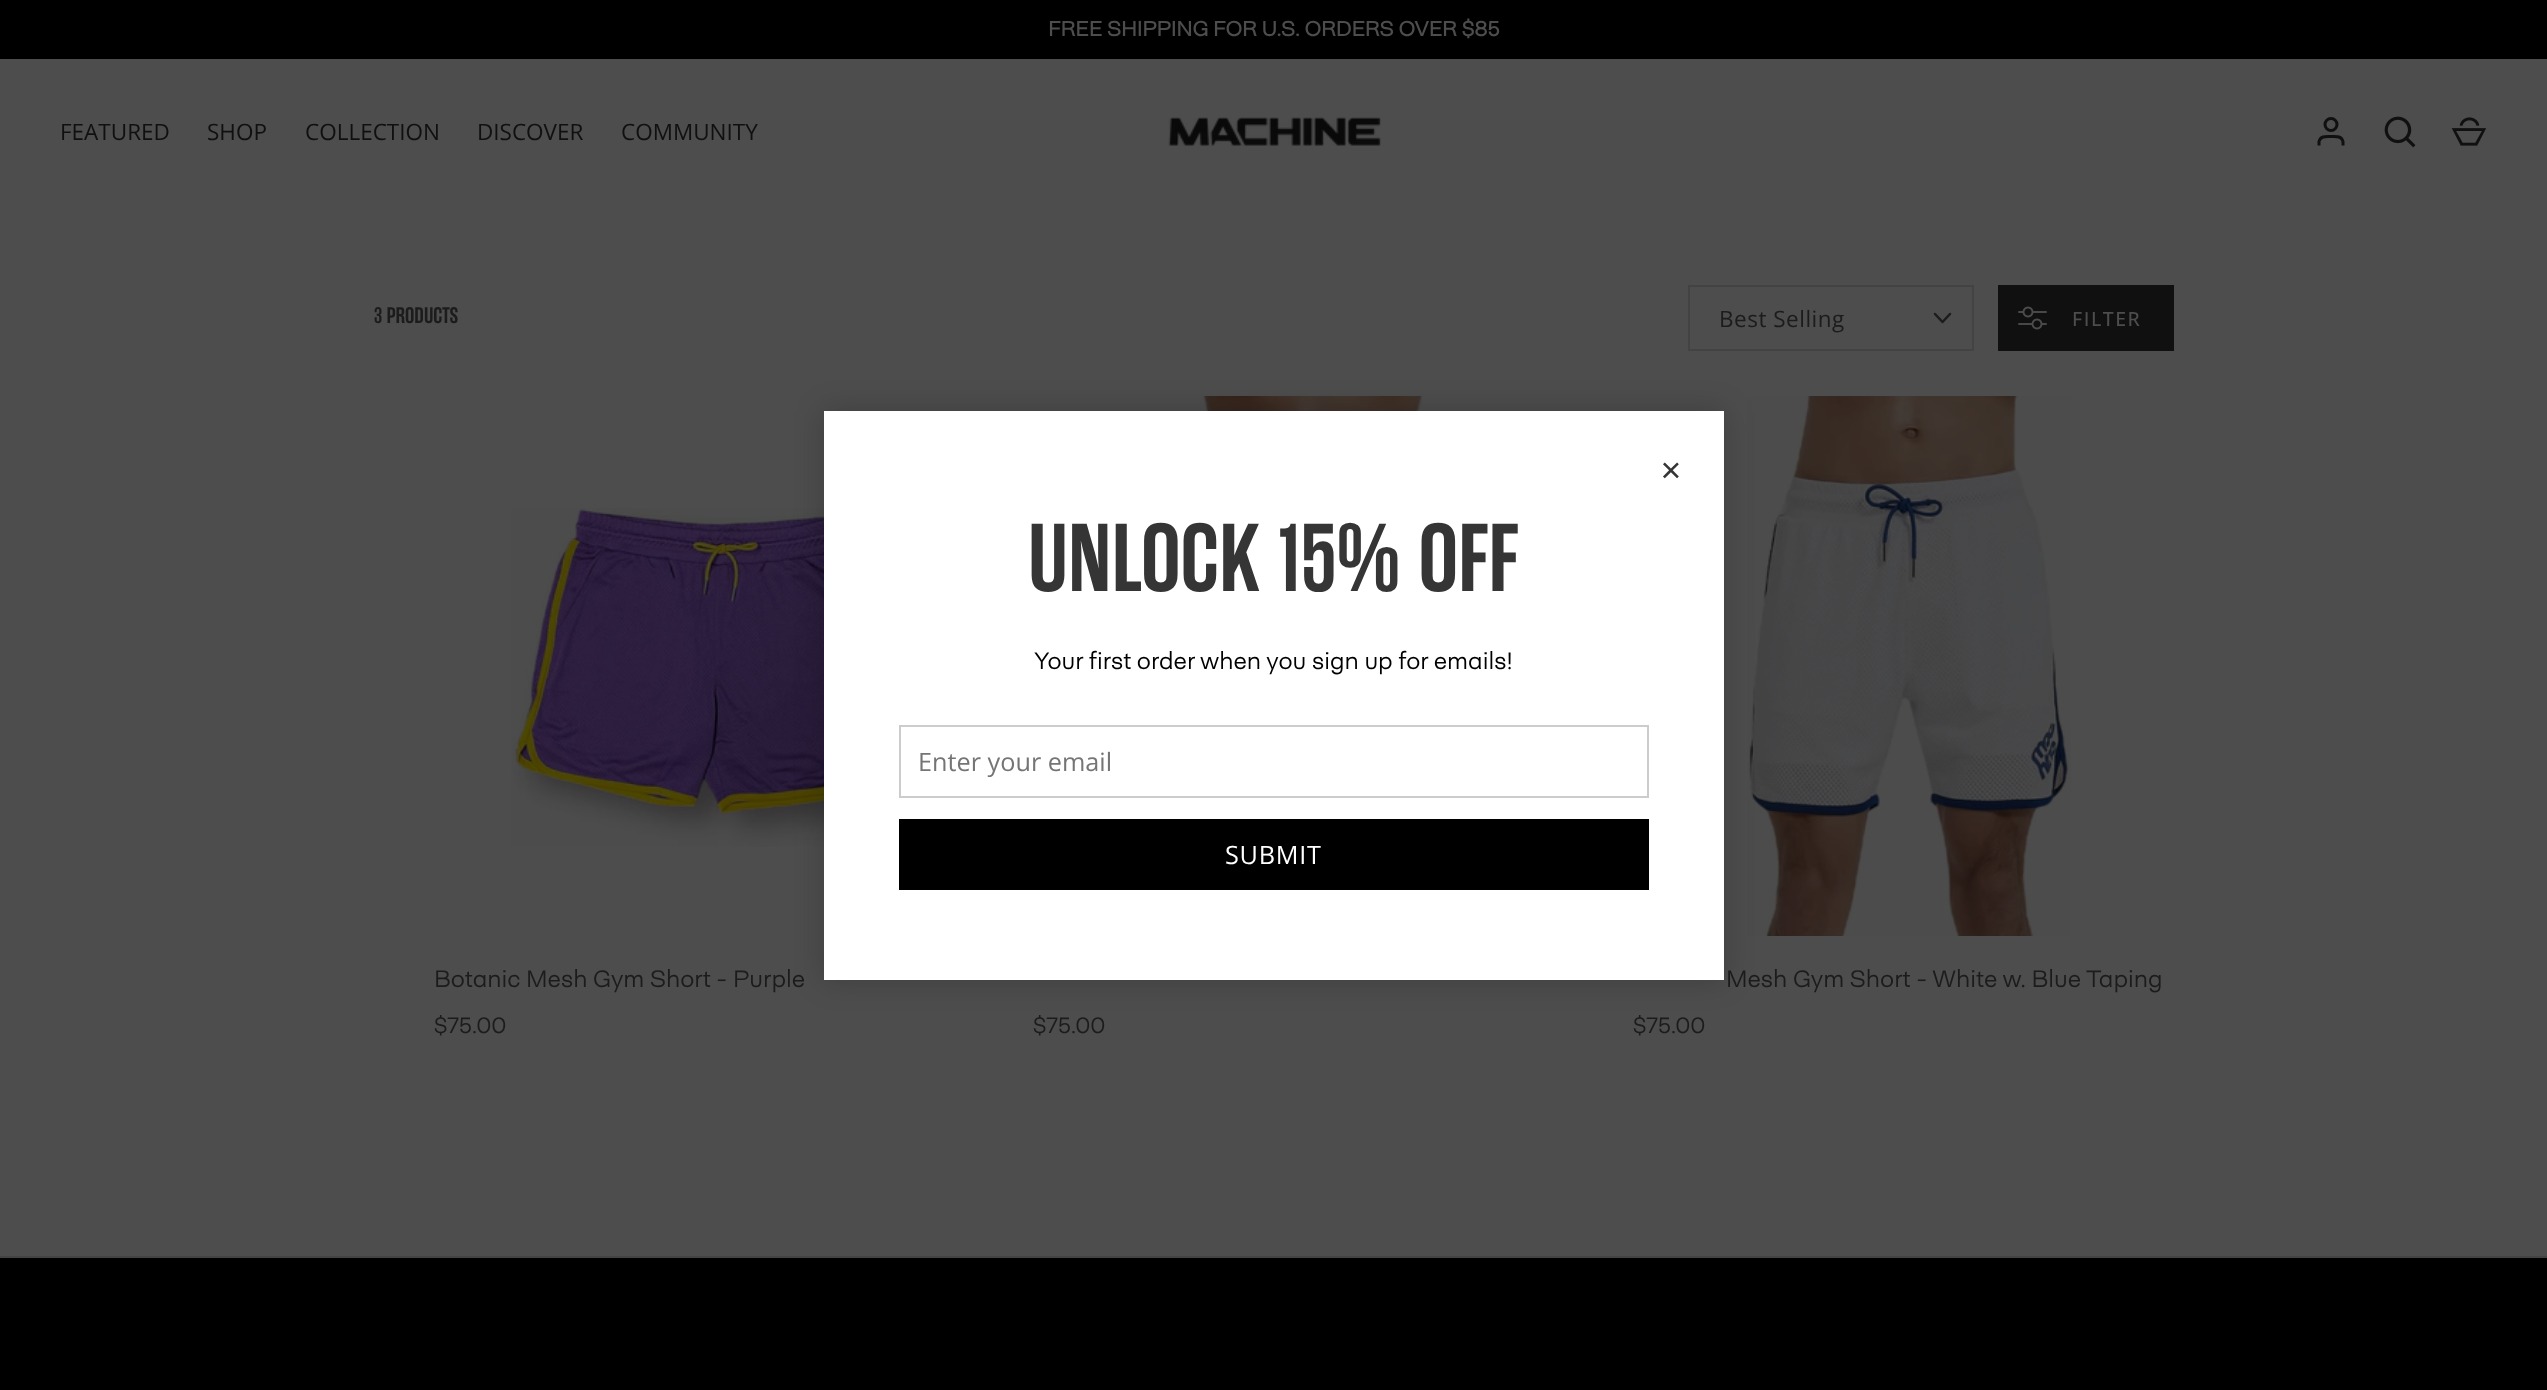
async function draw(canvas) {
  canvas.width = 2547;
  canvas.height = 1390;
  const ctx = canvas.getContext('2d');
  ctx.miterLimit = 4;
  ctx.fontKerning = 'normal';
  function label(s, x, y, font, color) {
    ctx.font = font;
    ctx.fillStyle = color;
    ctx.fillText(s, x, y);
  }
  function rect(x, y, w, h, color) {
    ctx.fillStyle = color;
    ctx.fillRect(x, y, w, h);
  }
  async function image(src, x, y, w, h) {
    const img = new Image();
    img.src = src;
    await img.decode();
    ctx.drawImage(img, x, y, w, h);
  }
  let path;

  rect(0, 0, 2547, 1390, '#4d4d4d');
  rect(0, 0, 2547, 59, '#000');
  label('FREE SHIPPING FOR U.S. ORDERS OVER $85', 1048, 36, 'bold 21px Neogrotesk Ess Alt', '#4d4d4d');
  label('FEATURED', 60, 140, '22.5px Open Sans', '#101010');
  label('SHOP', 207, 140, '22.5px Open Sans', '#101010');
  label('COLLECTION', 305, 140, '22.5px Open Sans', '#101010');
  label('DISCOVER', 477, 140, '22.5px Open Sans', '#101010');
  label('COMMUNITY', 621, 140, '22.5px Open Sans', '#101010');
  await image('assets/img1.png', 1168, 117, 213, 29);
  ctx.beginPath();
  ctx.arc(2331, 124.5, 6, 0, 2 * Math.PI);
  ctx.strokeStyle = '#101010';
  ctx.lineWidth = 3;
  ctx.stroke();
  path = new Path2D('M2343 145.5V141.5C2341.5 135.5 2335.5 136.5 2331 136.5C2326.5 136.5 2320.5 135.5 2319 141.5V145.5');
  ctx.stroke(path);
  await image('assets/img2.png', 2384, 116, 32, 32);
  await image('assets/img3.png', 2451, 117, 36, 29);
  label('3 PRODUCTS', 374, 323, '600 22.5px "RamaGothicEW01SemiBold"', '#1c1c1c');
  ctx.strokeStyle = '#434343';
  ctx.lineWidth = 2;
  ctx.strokeRect(1689, 286, 284, 64);
  ctx.letterSpacing = '0.5px';
  label('Best Selling', 1719, 327, '22.5px Open Sans', '#1c1c1c');
  path = new Path2D('M1935 314L1942.5 322L1950 314');
  ctx.strokeStyle = '#1c1c1c';
  ctx.lineWidth = 2.5;
  ctx.lineCap = 'round';
  ctx.lineJoin = 'round';
  ctx.stroke(path);
  rect(1998, 285, 176, 66, '#101010');
  await image('assets/img4.png', 2018, 306, 29, 24);
  ctx.letterSpacing = '1.5px';
  label('FILTER', 2072, 326, '500 19.5px Open Sans', '#4d4d4d');
  await image('assets/img5.png', 511, 508, 313, 339);
  ctx.letterSpacing = '0px';
  label('Botanic Mesh Gym Short - Purple', 434, 987, '300 24px Neogrotesk Ess Alt', '#1c1c1c');
  label('$75.00', 434, 1033, '300 22.5px Neogrotesk Ess Alt', '#1c1c1c');
  await image('assets/img6.png', 1202, 396, 221, 15);
  label('$75.00', 1033, 1033, '300 22.5px Neogrotesk Ess Alt', '#1c1c1c');
  await image('assets/img7.png', 1747, 396, 324, 540);
  label('Mesh Gym Short - White w. Blue Taping', 1726, 987, '300 24px Neogrotesk Ess Alt', '#1c1c1c');
  label('$75.00', 1633, 1033, '300 22.5px Neogrotesk Ess Alt', '#1c1c1c');
  ctx.fillStyle = '#00000033';
  ctx.filter = 'blur(15px)';
  ctx.beginPath();
  ctx.rect(824, 411, 900, 569);
  ctx.fill();
  ctx.filter = 'none';
  rect(824, 411, 900, 569, '#fff');
  label('×', 1661, 481, '300 38px Neogrotesk Ess Alt', '#343534');
  label('UNLOCK 15% OFF', 1028, 591, '600 96px "RamaGothicEW01SemiBold"', '#343534');
  label('Your first order when you sign up for emails!', 1034, 669, '300 24px Neogrotesk Ess Alt', '#000');
  ctx.strokeStyle = '#ccc';
  ctx.lineWidth = 2;
  ctx.lineJoin = 'miter';
  ctx.strokeRect(900, 726, 748, 71);
  label('Enter your email', 918, 771, '25.25px Open Sans', '#757575');
  rect(899, 819, 750, 71, '#000');
  ctx.letterSpacing = '0.75px';
  label('SUBMIT', 1225, 864, '25.25px Open Sans', '#fff');
  rect(0, 1258, 2547, 132, '#000');
  rect(0, 1256, 2547, 2, '#434343');
}

draw(document.querySelector('canvas'));
